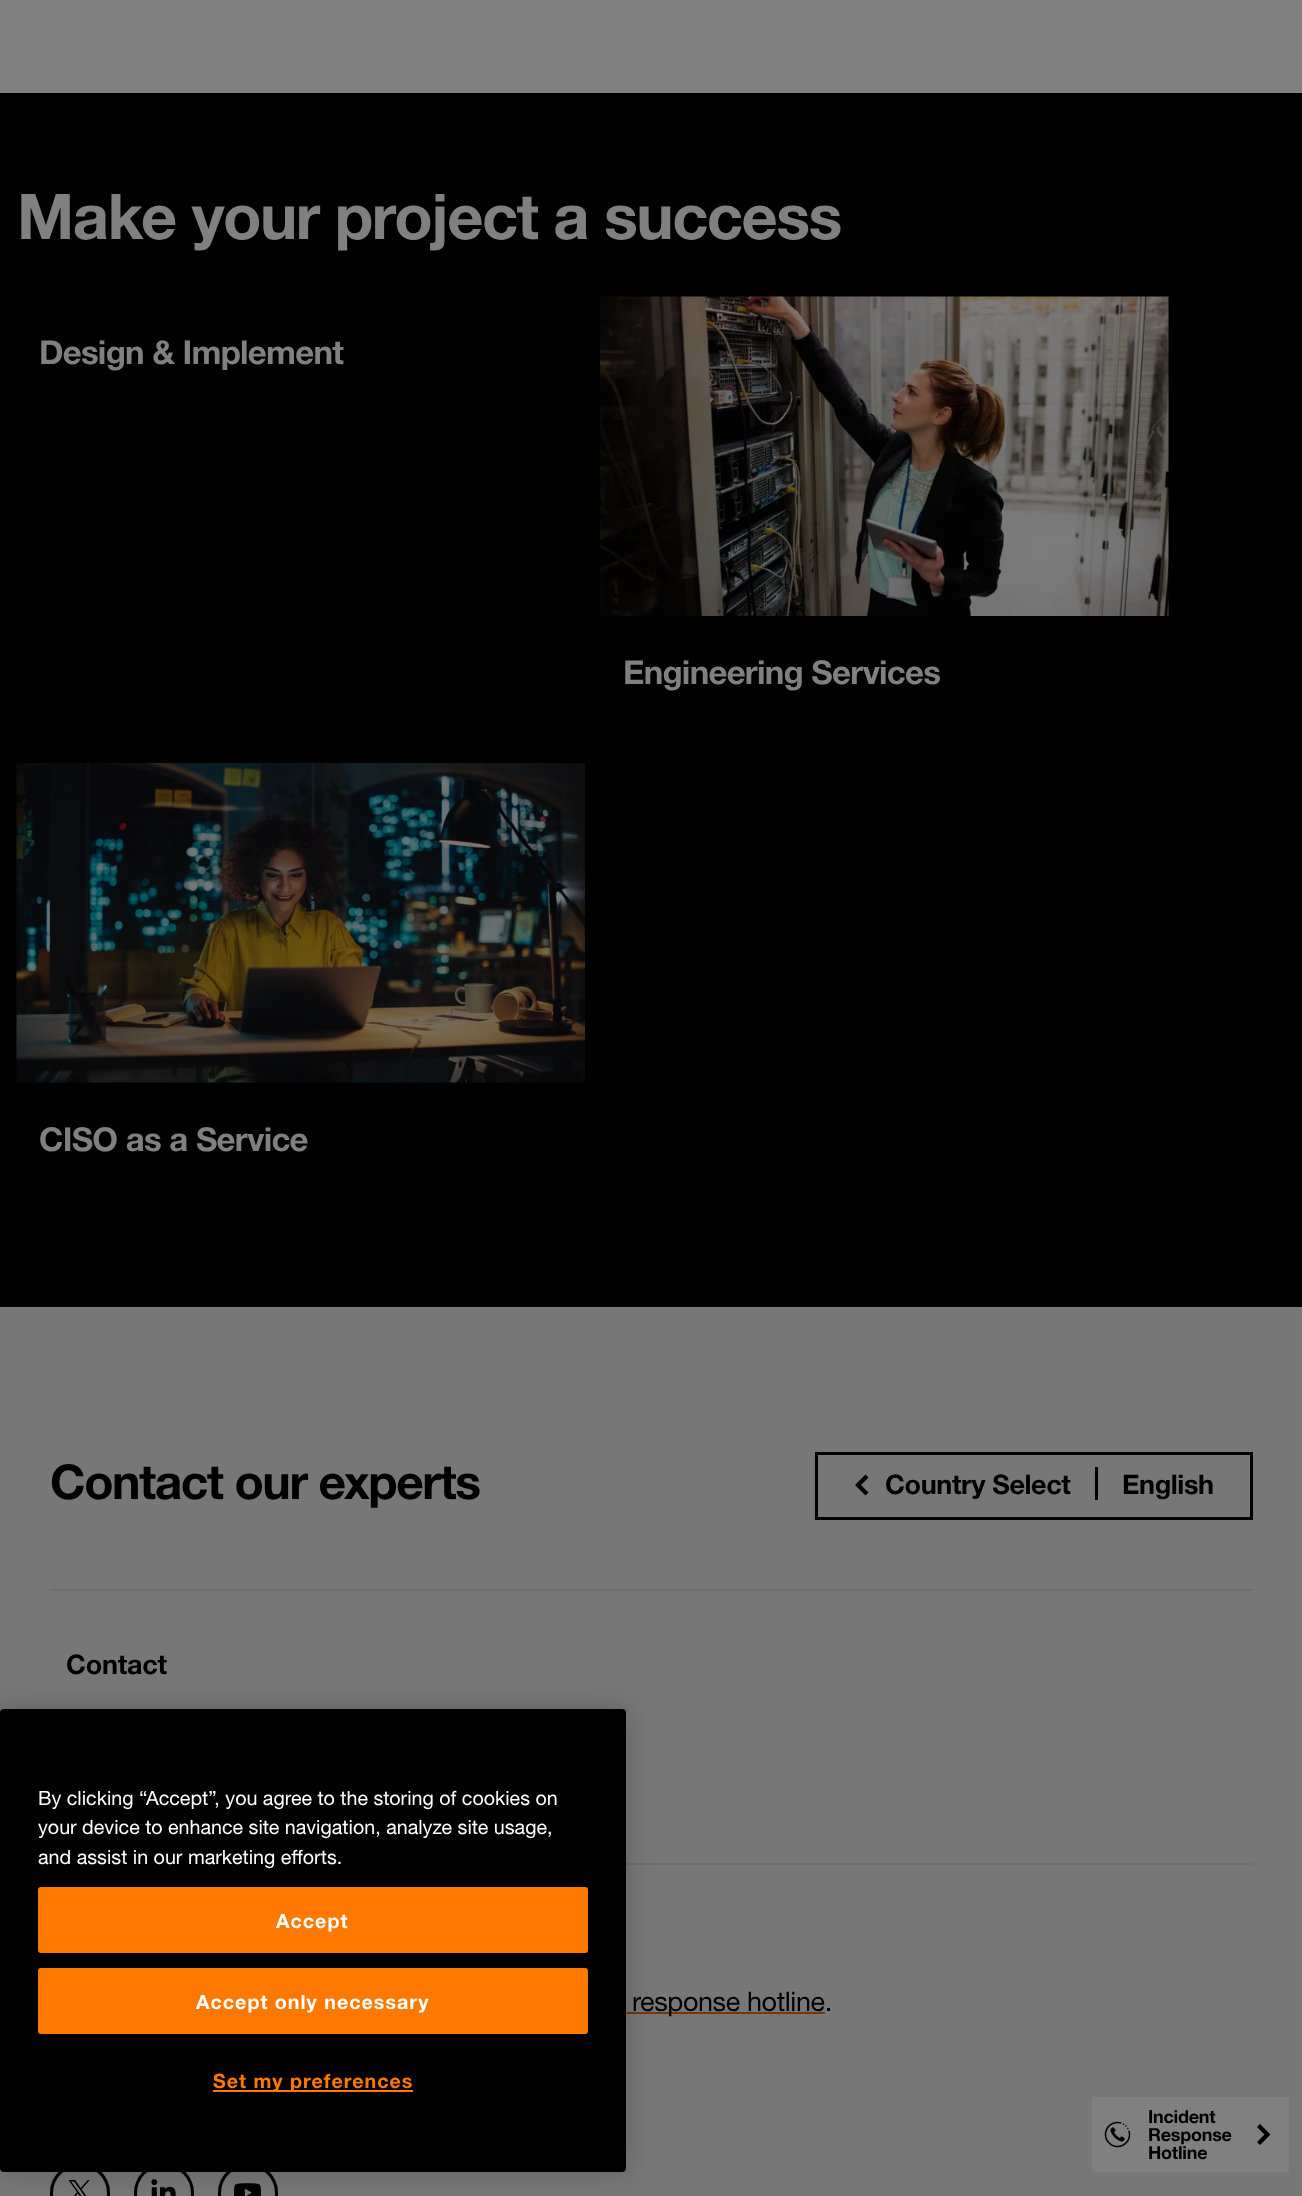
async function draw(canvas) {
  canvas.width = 1302;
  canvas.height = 2196;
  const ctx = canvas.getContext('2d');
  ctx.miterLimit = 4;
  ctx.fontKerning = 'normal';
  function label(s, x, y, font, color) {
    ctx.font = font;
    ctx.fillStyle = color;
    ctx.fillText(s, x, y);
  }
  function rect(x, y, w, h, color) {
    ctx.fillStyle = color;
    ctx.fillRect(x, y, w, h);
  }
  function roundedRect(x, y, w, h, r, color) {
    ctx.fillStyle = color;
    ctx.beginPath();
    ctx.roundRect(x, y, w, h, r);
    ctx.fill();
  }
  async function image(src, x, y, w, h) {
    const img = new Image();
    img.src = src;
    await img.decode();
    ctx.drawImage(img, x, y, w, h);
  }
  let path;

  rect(0, 0, 1302, 2196, '#808080');
  rect(0, 93, 1302, 1214, '#000');
  ctx.letterSpacing = '-1.5px';
  label('Make your project a success', 17, 239, 'bold 63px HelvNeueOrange', '#808080');
  ctx.letterSpacing = '-0.75px';
  label('Design & Implement', 39, 364, 'bold 33px HelvNeueOrange', '#808080');
  await image('assets/img1.png', 600, 296, 569, 320);
  label('Engineering Services', 623, 684, 'bold 33px HelvNeueOrange', '#808080');
  await image('assets/img2.png', 16, 763, 569, 320);
  label('CISO as a Service', 39, 1151, 'bold 33px HelvNeueOrange', '#808080');
  rect(0, 1307, 1302, 889, '#777');
  ctx.letterSpacing = '-1.4px';
  label('Contact our experts', 50, 1499, 'bold 48px HelvNeueOrange', '#000');
  ctx.strokeStyle = '#000';
  ctx.lineWidth = 3;
  ctx.strokeRect(816.5, 1453.5, 435, 65);
  path = new Path2D('M868.5 1477.5L865.5 1474.5L855 1485L865.5 1495.5L868.5 1492.5L861 1485Z');
  ctx.fill(path);
  ctx.letterSpacing = '-0.4px';
  label('Country Select', 885, 1494, 'bold 27px HelvNeueOrange', '#000');
  rect(1095, 1467, 3, 33, '#000');
  label('English', 1122, 1494, 'bold 27px HelvNeueOrange', '#000');
  rect(50, 1589, 1203, 2, '#6f6f6f');
  ctx.letterSpacing = '-0.25px';
  label('Contact', 66, 1674, 'bold 27px HelvNeueOrange', '#000');
  rect(626, 1863, 627, 2, '#6f6f6f');
  rect(626, 2012, 199, 2, '#793700');
  ctx.letterSpacing = '-0.4px';
  label('response hotline.', 632, 2011, '27px HelvNeueOrange', '#000');
  ctx.beginPath();
  ctx.arc(80, 2193, 28.5, 0, 2 * Math.PI);
  ctx.stroke();
  await image('assets/img3.png', 68, 2180, 22, 16);
  ctx.beginPath();
  ctx.arc(164, 2193, 28.5, 0, 2 * Math.PI);
  ctx.stroke();
  await image('assets/img4.png', 151, 2179, 25, 17);
  ctx.beginPath();
  ctx.arc(248, 2193, 28.5, 0, 2 * Math.PI);
  ctx.stroke();
  await image('assets/img5.png', 234, 2183, 27, 13);
  rect(1092, 2097, 197, 75, '#808080');
  ctx.letterSpacing = '-0.25px';
  label('Incident', 1148, 2123, 'bold 18px HelvNeueOrange', '#000');
  await image('assets/img6.png', 1104, 2121, 27, 27);
  label('Response', 1148, 2141, 'bold 18px HelvNeueOrange', '#000');
  path = new Path2D('M1257 2127L1260 2124L1270.5 2134.5L1260 2145L1257 2142L1264.5 2134.5Z');
  ctx.fill(path);
  label('Hotline', 1148, 2159, 'bold 18px HelvNeueOrange', '#000');
  ctx.fillStyle = '#00000033';
  ctx.filter = 'blur(13.5px)';
  ctx.beginPath();
  ctx.roundRect(0, 1709, 626, 463, 4);
  ctx.fill();
  ctx.filter = 'none';
  roundedRect(0, 1709, 626, 463, 4, '#000');
  ctx.letterSpacing = '0px';
  label('By clicking “Accept”, you agree to the storing of cookies on', 38, 1805, '19.7px HelvNeueOrange', '#fff');
  label('your device to enhance site navigation, analyze site usage,', 38, 1834, '19.7px HelvNeueOrange', '#fff');
  label('and assist in our marketing efforts.', 38, 1864, '19.7px HelvNeueOrange', '#fff');
  ctx.fillStyle = '#ff7900';
  ctx.beginPath();
  ctx.roundRect(39, 1888, 548, 64, 2);
  ctx.fill();
  ctx.strokeStyle = '#ff7900';
  ctx.lineWidth = 2;
  ctx.stroke();
  ctx.letterSpacing = '1px';
  label('Accept', 276, 1928, 'bold 19.7px HelvNeueOrange', '#fff');
  ctx.fillStyle = '#ff7900';
  ctx.beginPath();
  ctx.roundRect(39, 1969, 548, 64, 2);
  ctx.fill();
  ctx.stroke();
  label('Accept only necessary', 196, 2009, 'bold 19.7px HelvNeueOrange', '#fff');
  rect(213, 2090, 200, 2, '#ff7900');
  label('Set my preferences', 213, 2088, 'bold 19.7px HelvNeueOrange', '#ff7900');
}

draw(document.querySelector('canvas'));
